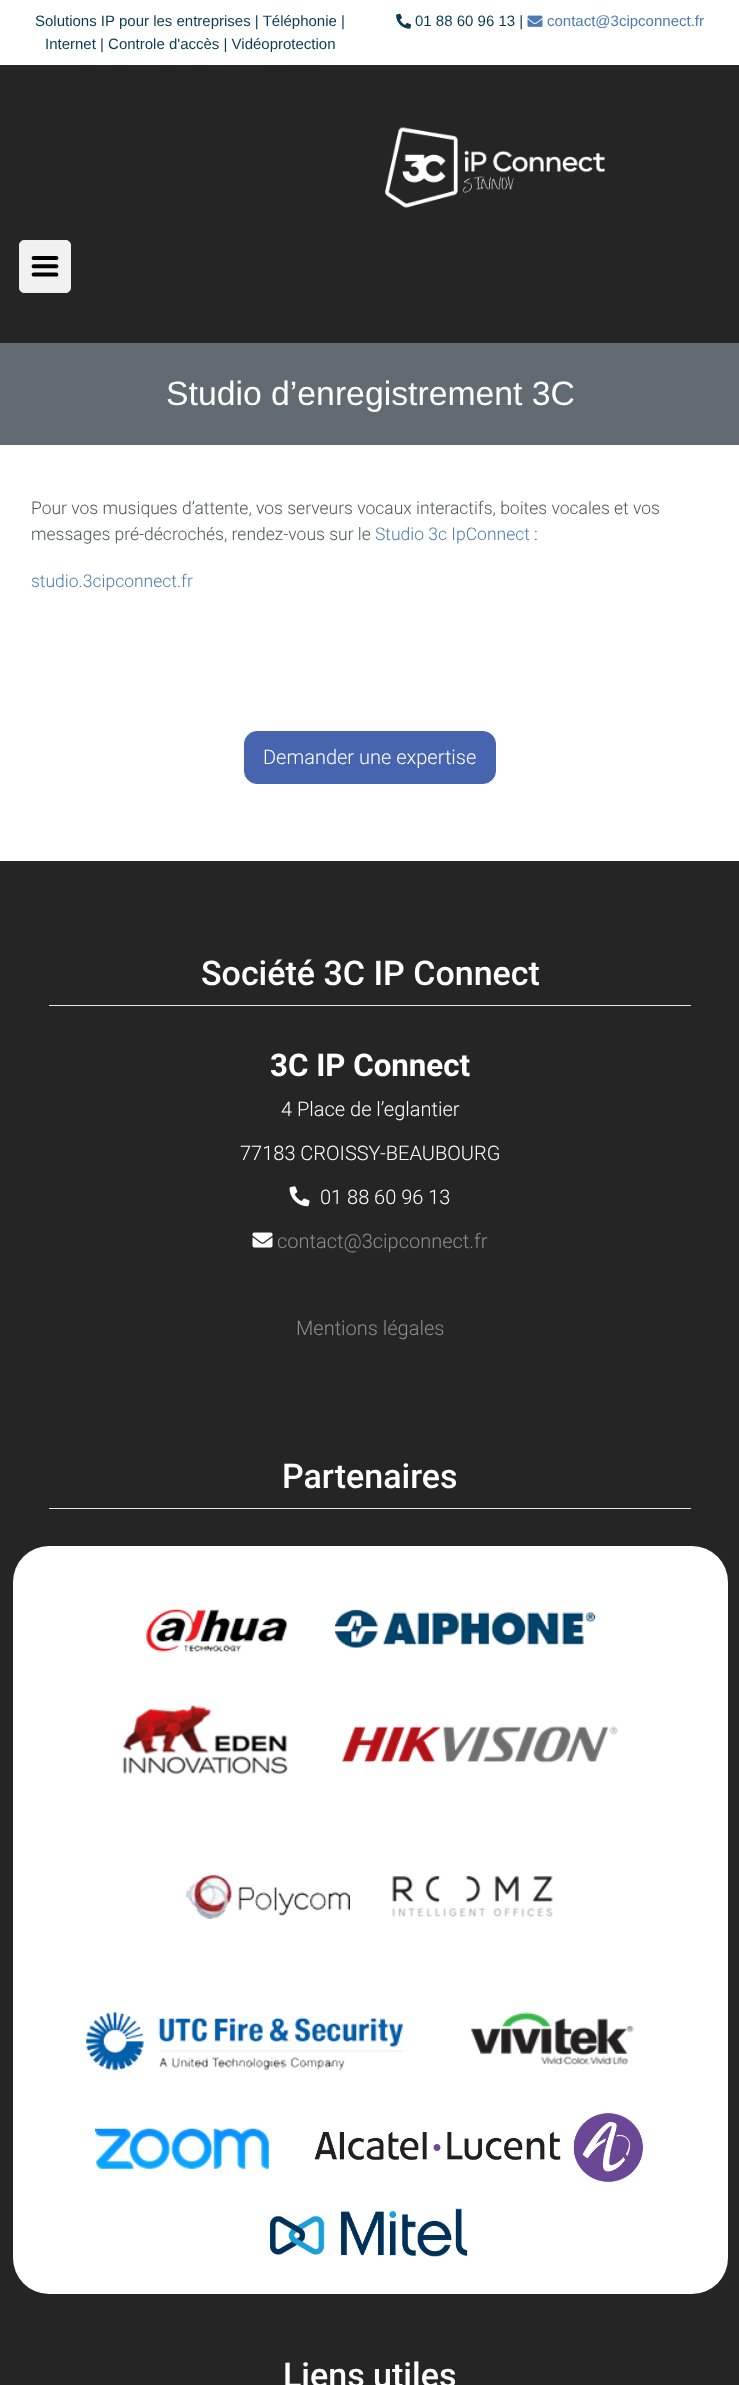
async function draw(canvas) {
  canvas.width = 739;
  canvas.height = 2385;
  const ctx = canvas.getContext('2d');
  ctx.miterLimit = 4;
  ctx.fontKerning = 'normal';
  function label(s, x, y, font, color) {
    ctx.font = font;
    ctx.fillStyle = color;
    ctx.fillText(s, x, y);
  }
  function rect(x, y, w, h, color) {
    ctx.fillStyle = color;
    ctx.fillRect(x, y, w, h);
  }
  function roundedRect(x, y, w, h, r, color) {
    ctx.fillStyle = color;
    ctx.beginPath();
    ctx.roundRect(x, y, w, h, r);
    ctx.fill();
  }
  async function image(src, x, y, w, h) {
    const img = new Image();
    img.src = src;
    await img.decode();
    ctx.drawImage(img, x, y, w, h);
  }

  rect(0, 0, 739, 2385, '#fff');
  label('Solutions IP pour les entreprises | Téléphonie |', 35, 26, '15px Liberation Sans', '#0b3c50');
  label('Internet | Controle d\'accès | Vidéoprotection', 45, 49, '15px Liberation Sans', '#0b3c50');
  await image('assets/img1.png', 396, 13, 16, 16);
  label('01 88 60 96 13 |', 415, 26, '15px Liberation Sans', '#0b3c50');
  await image('assets/img2.png', 527, 15, 16, 12);
  label('contact@3cipconnect.fr', 547, 26, '15px Liberation Sans', '#4c7bb1');
  rect(0, 65, 739, 278, '#252525');
  await image('assets/img3.png', 385, 127, 220, 81);
  ctx.fillStyle = '#f1f1f1';
  ctx.beginPath();
  ctx.roundRect(19.5, 240.5, 51, 52, 4.5);
  ctx.fill();
  ctx.strokeStyle = '#ededed';
  ctx.stroke();
  await image('assets/img4.png', 31, 256, 28, 21);
  rect(0, 343, 739, 102, '#616b71');
  label('Studio d’enregistrement 3C', 166, 405, '33.75px Arimo', '#fff');
  label('Pour vos musiques d’attente, vos serveurs vocaux interactifs, boites vocales et vos', 31, 514, '300 17.5px Roboto', '#51545c');
  label('messages pré-décrochés, rendez-vous sur le', 31, 540, '300 17.5px Roboto', '#51545c');
  label('Studio 3c IpConnect', 375, 540, '300 17.5px Roboto', '#4c7bb1');
  label(':', 534, 540, '300 17.5px Roboto', '#51545c');
  label('studio.3cipconnect.fr', 31, 587, '300 17.5px Roboto', '#4c7bb1');
  ctx.fillStyle = '#4764af';
  ctx.beginPath();
  ctx.roundRect(244.5, 731.5, 251, 52, 12.5);
  ctx.fill();
  ctx.strokeStyle = '#4764af';
  ctx.stroke();
  label('Demander une expertise', 263, 764, '300 20px Roboto', '#fff');
  rect(0, 861, 739, 1524, '#252525');
  label('Société 3C IP Connect', 201, 985, '500 34px Roboto', '#fff');
  rect(49, 1005, 642, 1, '#e6e6e6');
  label('3C IP Connect', 270, 1076, 'bold 31.25px Roboto', '#fff');
  label('4 Place de l’eglantier', 281, 1116, '300 20px Roboto', '#fff');
  label('77183 CROISSY-BEAUBOURG', 240, 1160, '300 20px Roboto', '#fff');
  await image('assets/img5.png', 289, 1186, 21, 21);
  label('01 88 60 96 13', 320, 1204, '300 20px Roboto', '#fff');
  await image('assets/img6.png', 252, 1232, 21, 16);
  label('contact@3cipconnect.fr', 277, 1248, '300 20px Roboto', '#8d8d8d');
  label('Mentions légales', 296, 1335, '300 20px Roboto', '#8d8d8d');
  label('Partenaires', 282, 1488, '500 34px Roboto', '#fff');
  rect(49, 1508, 642, 1, '#e6e6e6');
  roundedRect(13, 1546, 715, 748, 36, '#fff');
  await image('assets/img7.png', 146, 1608, 142, 44);
  await image('assets/img8.png', 335, 1609, 261, 39);
  await image('assets/img9.png', 122, 1705, 166, 70);
  await image('assets/img10.png', 342, 1726, 276, 37);
  await image('assets/img11.png', 186, 1874, 164, 46);
  await image('assets/img12.png', 392, 1876, 161, 41);
  await image('assets/img13.png', 86, 2012, 318, 59);
  await image('assets/img14.png', 470, 2012, 164, 53);
  await image('assets/img15.png', 95, 2128, 174, 41);
  await image('assets/img16.png', 314, 2113, 329, 69);
  await image('assets/img17.png', 270, 2208, 198, 49);
  label('Liens utiles', 283, 2387, '500 34px Roboto', '#fff');
}

draw(document.querySelector('canvas'));
